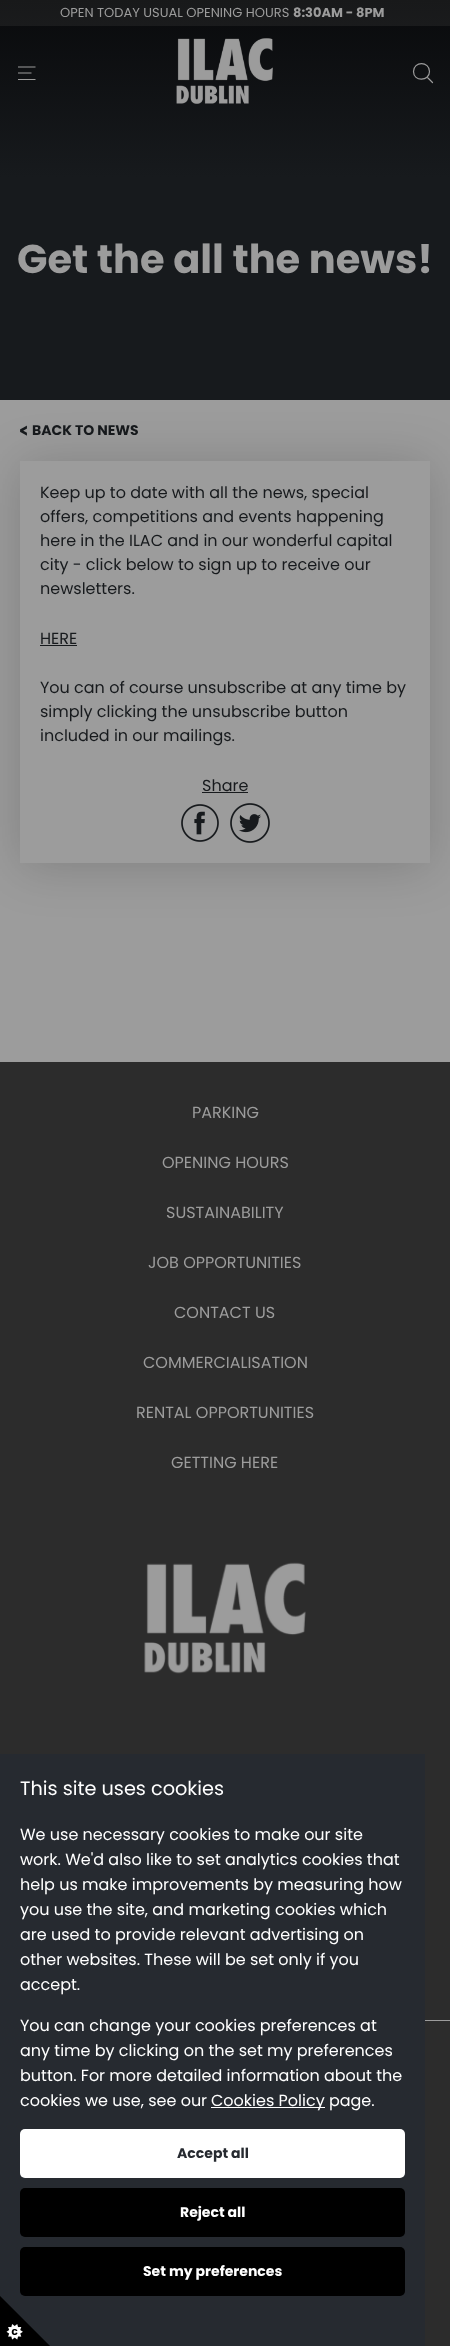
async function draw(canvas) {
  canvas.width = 450;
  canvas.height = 2346;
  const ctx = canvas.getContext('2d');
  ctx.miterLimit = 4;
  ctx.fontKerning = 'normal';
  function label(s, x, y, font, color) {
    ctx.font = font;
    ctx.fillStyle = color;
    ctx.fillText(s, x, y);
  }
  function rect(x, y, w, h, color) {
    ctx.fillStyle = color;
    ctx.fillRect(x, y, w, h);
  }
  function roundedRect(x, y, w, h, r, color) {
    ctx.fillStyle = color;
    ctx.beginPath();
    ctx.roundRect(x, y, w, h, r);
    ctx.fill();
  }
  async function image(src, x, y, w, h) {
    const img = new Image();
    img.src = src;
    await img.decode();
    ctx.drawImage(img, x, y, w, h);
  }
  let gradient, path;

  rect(0, 0, 450, 2346, '#9c9c9c');
  gradient = ctx.createLinearGradient(225, 0, 225, 177);
  gradient.addColorStop(0, '#18191a');
  gradient.addColorStop(1, '#25262a');
  ctx.fillStyle = gradient;
  ctx.fillRect(0, 0, 450, 26);
  label('OPEN TODAY USUAL OPENING HOURS', 60, 17, '13px Poppins', '#9c9c9c');
  label('8:30AM - 8PM', 293, 17, 'bold 13px Poppins', '#9c9c9c');
  gradient = ctx.createLinearGradient(225, 0, 225, 177);
  gradient.addColorStop(0, '#090a0c');
  gradient.addColorStop(1, '#171a1d');
  ctx.fillStyle = gradient;
  ctx.fillRect(0, 26, 450, 151);
  path = new Path2D('M18 79.5H35.5M18 73H31.5M18 67H35.5');
  ctx.strokeStyle = '#9c9c9c';
  ctx.lineWidth = 1.2;
  ctx.stroke(path);
  await image('assets/img1.png', 176, 38, 97, 66);
  path = new Path2D('M429.5 71.5C429.5 81.5 413.5 82 413.5 71.5C413.5 61 429.5 61 429.5 71.5ZM432.5 82.5L427 77');
  ctx.lineCap = 'round';
  ctx.lineJoin = 'round';
  ctx.stroke(path);
  rect(0, 177, 450, 223, '#171a1d');
  label('Get the all the news!', 17, 273, 'bold 40px Poppins', '#9c9c9c');
  await image('assets/img2.png', 20, 425, 7, 11);
  label('BACK TO NEWS', 32, 435, 'bold 14px Poppins', '#171a1d');
  ctx.save();
  path = new Path2D('M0 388H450V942H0ZM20 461H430V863H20Z');
  ctx.clip(path, 'evenodd');
  ctx.fillStyle = '#0000002e';
  ctx.filter = 'blur(25px)';
  ctx.beginPath();
  ctx.rect(20, 464, 410, 402);
  ctx.fill();
  ctx.filter = 'none';
  ctx.restore();
  label('Keep up to date with all the news, special', 40, 498, '16px Poppins', '#171a1d');
  label('offers, competitions and events happening', 40, 522, '16px Poppins', '#171a1d');
  label('here in the ILAC and in our wonderful capital', 40, 546, '16px Poppins', '#171a1d');
  label('city - click below to sign up to receive our', 40, 570, '16px Poppins', '#171a1d');
  label('newsletters.', 40, 594, '16px Poppins', '#171a1d');
  label('HERE', 40, 644, '16px Poppins', '#171a1d');
  rect(40, 645, 37, 1, '#171a1d');
  label('You can of course unsubscribe at any time by', 40, 693, '16px Poppins', '#171a1d');
  label('simply clicking the unsubscribe button', 40, 717, '16px Poppins', '#171a1d');
  label('included in our mailings.', 40, 741, '16px Poppins', '#171a1d');
  label('Share', 202, 791, '16px Poppins', '#171a1d');
  rect(202, 792, 46, 1, '#171a1d');
  await image('assets/img3.png', 181, 804, 38, 38);
  await image('assets/img4.png', 230, 803, 40, 40);
  rect(0, 1062, 450, 1284, '#2c2c2c');
  label('PARKING', 192, 1118, '16px Poppins', '#9c9c9c');
  label('OPENING HOURS', 162, 1168, '16px Poppins', '#9c9c9c');
  label('SUSTAINABILITY', 166, 1218, '16px Poppins', '#9c9c9c');
  label('JOB OPPORTUNITIES', 148, 1268, '16px Poppins', '#9c9c9c');
  label('CONTACT US', 174, 1318, '16px Poppins', '#9c9c9c');
  label('COMMERCIALISATION', 143, 1368, '16px Poppins', '#9c9c9c');
  label('RENTAL OPPORTUNITIES', 136, 1418, '16px Poppins', '#9c9c9c');
  label('GETTING HERE', 171, 1468, '16px Poppins', '#9c9c9c');
  await image('assets/img5.png', 144, 1562, 162, 112);
  rect(425, 2020, 25, 1, '#9c9c9c');
  rect(0, 1754, 425, 592, '#262a30');
  label('This site uses cookies', 20, 1795, '19.25px Poppins', '#fff');
  label('We use necessary cookies to make our site', 20, 1840, '16px Poppins', '#fff');
  label('work. We\'d also like to set analytics cookies that', 20, 1865, '16px Poppins', '#fff');
  label('help us make improvements by measuring how', 20, 1890, '16px Poppins', '#fff');
  label('you use the site, and marketing cookies which', 20, 1915, '16px Poppins', '#fff');
  label('are used to provide relevant advertising on', 20, 1940, '16px Poppins', '#fff');
  label('other websites. These will be set only if you', 20, 1965, '16px Poppins', '#fff');
  label('accept.', 20, 1990, '16px Poppins', '#fff');
  label('You can change your cookies preferences at', 20, 2031, '16px Poppins', '#fff');
  label('any time by clicking on the set my preferences', 20, 2056, '16px Poppins', '#fff');
  label('button. For more detailed information about the', 20, 2081, '16px Poppins', '#fff');
  label('cookies we use, see our', 20, 2106, '16px Poppins', '#fff');
  rect(211, 2107, 114, 1, '#fff');
  label('Cookies Policy page.', 211, 2106, '16px Poppins', '#fff');
  roundedRect(20, 2129, 385, 49, 5, '#fff');
  label('Accept all', 177, 2158, 'bold 14px Poppins', '#262a30');
  roundedRect(20, 2188, 385, 49, 5, '#000');
  label('Reject all', 180, 2217, 'bold 14px Poppins', '#fff');
  roundedRect(20, 2247, 385, 49, 5, '#000');
  label('Set my preferences', 143, 2276, 'bold 14px Poppins', '#fff');
  await image('assets/img6.png', 0, 2296, 50, 50);
}

draw(document.querySelector('canvas'));
